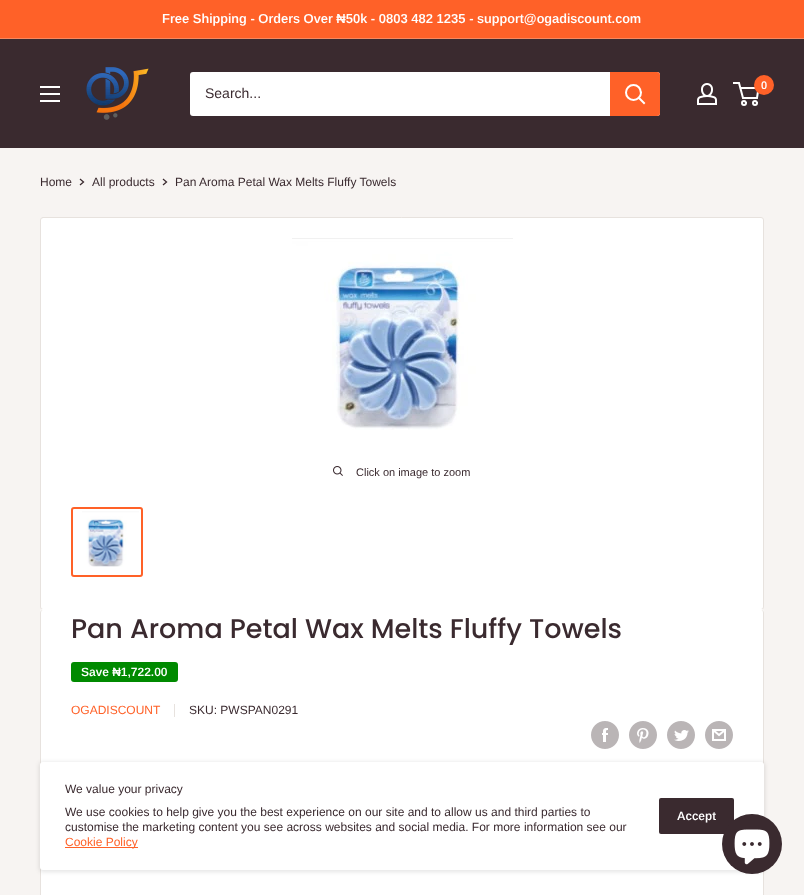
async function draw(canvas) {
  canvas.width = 804;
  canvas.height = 895;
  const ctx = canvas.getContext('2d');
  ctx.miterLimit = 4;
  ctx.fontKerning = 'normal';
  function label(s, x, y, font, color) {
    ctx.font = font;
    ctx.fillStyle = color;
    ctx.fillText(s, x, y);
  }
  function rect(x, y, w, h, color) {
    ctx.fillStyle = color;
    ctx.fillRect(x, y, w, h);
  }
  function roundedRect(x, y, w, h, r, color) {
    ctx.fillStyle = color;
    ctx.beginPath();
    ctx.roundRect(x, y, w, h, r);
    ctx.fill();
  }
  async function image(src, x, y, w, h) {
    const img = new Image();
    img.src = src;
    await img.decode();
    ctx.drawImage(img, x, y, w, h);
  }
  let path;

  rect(0, 0, 804, 895, '#f7f4f2');
  rect(0, 0, 804, 38, '#ff6128');
  rect(0, 38, 804, 1, '#f8885e');
  label('Free Shipping - Orders Over ₦50k - 0803 482 1235 - support@ogadiscount.com', 162, 23, '600 13px Arimo', '#fff');
  rect(0, 39, 804, 109, '#3a2a2f');
  await image('assets/img1.png', 40, 86, 20, 16);
  await image('assets/img2.png', 86, 67, 63, 53);
  roundedRect(190, 72, 470, 44, 3, '#fff');
  label('Search...', 205, 98, '14px Arimo', '#3a2a2f');
  ctx.fillStyle = '#ff6128';
  ctx.beginPath();
  ctx.roundRect(610, 72, 50, 44, [0, 3, 3, 0]);
  ctx.fill();
  path = new Path2D('M644 103L639 98');
  ctx.strokeStyle = '#fff';
  ctx.lineWidth = 2;
  ctx.lineCap = 'square';
  ctx.stroke(path);
  ctx.beginPath();
  ctx.arc(633.5, 92.5, 7.5, 0, 2 * Math.PI);
  ctx.stroke();
  await image('assets/img3.png', 697, 83, 20, 22);
  ctx.beginPath();
  ctx.arc(744, 103, 2, 0, 2 * Math.PI);
  ctx.stroke();
  ctx.beginPath();
  ctx.arc(755, 103, 2, 0, 2 * Math.PI);
  ctx.stroke();
  path = new Path2D('M740.5 88H758.5L757 98H743L739 83H733');
  ctx.lineCap = 'butt';
  ctx.stroke(path);
  ctx.beginPath();
  ctx.arc(764, 85, 10, 0, 2 * Math.PI);
  ctx.fill();
  label('0', 761, 89, '600 11px Arimo', '#fff');
  label('Home', 40, 186, '12px Arimo', '#3a2a2f');
  path = new Path2D('M80.5 179.5L83.5 182L80.5 184.5');
  ctx.strokeStyle = '#3a2a2f';
  ctx.lineWidth = 1.3;
  ctx.lineCap = 'square';
  ctx.stroke(path);
  label('All products', 92, 186, '12px Arimo', '#3a2a2f');
  path = new Path2D('M163.5 179.5L166.5 182L163.5 184.5');
  ctx.stroke(path);
  label('Pan Aroma Petal Wax Melts Fluffy Towels', 175, 186, '12px Arimo', '#3a2a2f');
  ctx.fillStyle = '#fff';
  ctx.beginPath();
  ctx.roundRect(40.5, 217.5, 723, 392, 2.5);
  ctx.fill();
  ctx.strokeStyle = '#e7e2de';
  ctx.lineWidth = 1;
  ctx.stroke();
  await image('assets/img4.png', 292, 238, 221, 192);
  await image('assets/img5.png', 333, 466, 10, 10);
  label('Click on image to zoom', 356, 476, '11px Arimo', '#3a2a2f');
  ctx.beginPath();
  ctx.roundRect(72, 508, 70, 68, 2);
  ctx.strokeStyle = '#ff6128';
  ctx.lineWidth = 2;
  ctx.stroke();
  await image('assets/img6.png', 82, 511, 57, 56);
  ctx.fillStyle = '#fff';
  path = new Path2D('M43 609C41 609 40 611 40 613C40 611 41 610 43 610H761C763 610 764 611 764 613C764 611 763 609 761 609Z');
  ctx.fill(path);
  roundedRect(40, 610, 724, 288, 3, '#fff');
  ctx.fillStyle = '#e7e2de';
  path = new Path2D('M43 610H761C763 610 764 611 764 613V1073C764 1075 763 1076 761 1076H43C41 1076 40 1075 40 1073V613C40 611 41 610 43 610ZM43 610H761C762 610 763 611 763 613V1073C763 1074 762 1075 761 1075H43C42 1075 41 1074 41 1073V613C41 611 42 610 43 610Z');
  ctx.fill(path, 'evenodd');
  label('Pan Aroma Petal Wax Melts Fluffy Towels', 71, 638, '500 27px Poppins', '#3a2a2f');
  roundedRect(71, 662, 107, 20, 3, '#008a00');
  label('Save ₦1,722.00', 81, 676, '600 12px Arimo', '#fff');
  label('OGADISCOUNT', 71, 714, '12px Arimo', '#ff6128');
  rect(174, 704, 1, 13, '#e7e2de');
  label('SKU: PWSPAN0291', 189, 714, '12px Arimo', '#3a2a2f');
  await image('assets/img7.png', 591, 721, 28, 28);
  await image('assets/img8.png', 629, 721, 28, 28);
  await image('assets/img9.png', 667, 721, 28, 28);
  await image('assets/img10.png', 705, 721, 28, 28);
  ctx.fillStyle = '#0000001a';
  ctx.filter = 'blur(2px)';
  ctx.beginPath();
  ctx.roundRect(39, 762, 726, 110, 4);
  ctx.fill();
  ctx.filter = 'none';
  roundedRect(40, 762, 724, 108, 3, '#fff');
  label('We value your privacy', 65, 793, '12px Arimo', '#3a2a2f');
  label('We use cookies to help give you the best experience on our site and to allow us and third parties to', 65, 816, '12px Arimo', '#3a2a2f');
  label('customise the marketing content you see across websites and social media. For more information see our', 65, 831, '12px Arimo', '#3a2a2f');
  rect(65, 847, 73, 1, '#ff6128');
  label('Cookie Policy', 65, 846, '12px Arimo', '#ff6128');
  roundedRect(659, 798, 75, 36, 2, '#3a2a2f');
  label('Accept', 677, 820, '600 12px Arimo', '#fff');
  ctx.fillStyle = '#3a2a2f';
  ctx.beginPath();
  ctx.arc(752, 844, 30, 0, 2 * Math.PI);
  ctx.fill();
  await image('assets/img11.png', 734, 829, 36, 36);
}

draw(document.querySelector('canvas'));
